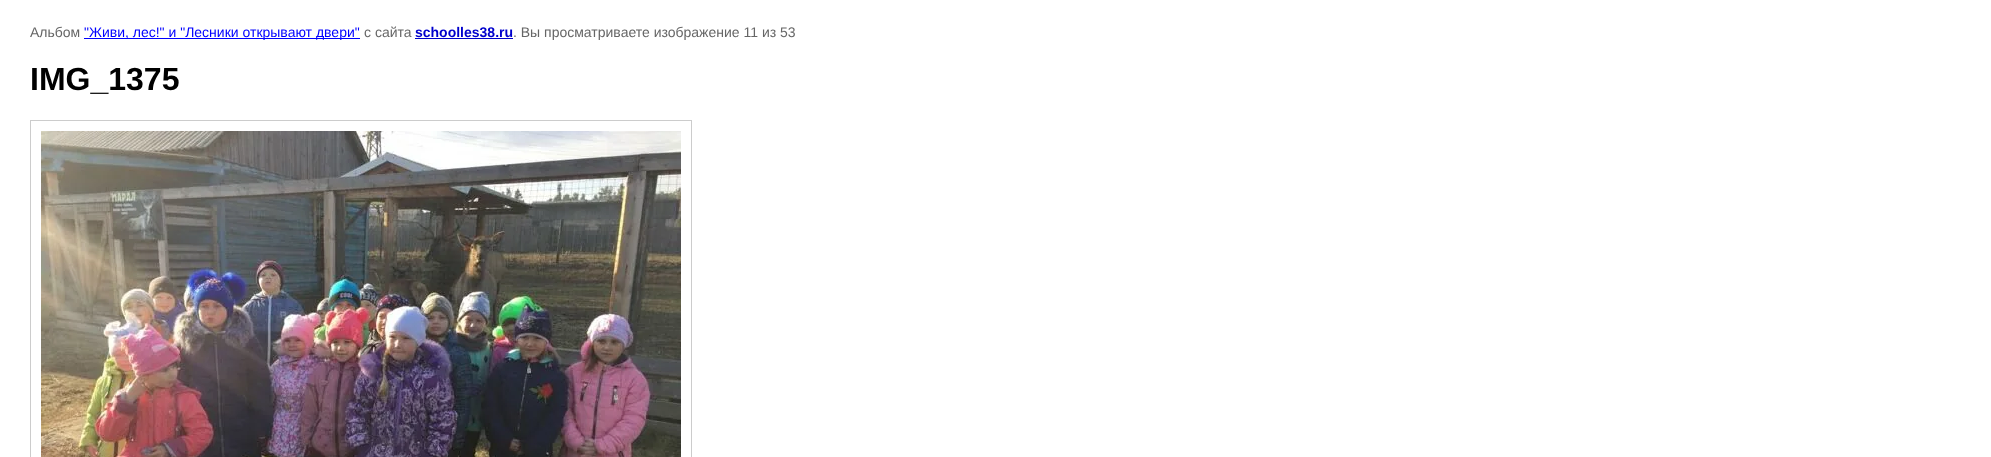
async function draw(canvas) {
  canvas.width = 1991;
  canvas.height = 457;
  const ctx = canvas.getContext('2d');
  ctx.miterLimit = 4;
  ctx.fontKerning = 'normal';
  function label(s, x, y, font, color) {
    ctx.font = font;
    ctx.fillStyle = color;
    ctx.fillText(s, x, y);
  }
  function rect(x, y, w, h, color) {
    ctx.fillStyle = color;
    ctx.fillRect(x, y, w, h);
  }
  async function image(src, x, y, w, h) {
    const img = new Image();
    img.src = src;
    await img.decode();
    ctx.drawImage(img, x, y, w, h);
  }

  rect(0, 0, 1991, 457, '#fff');
  label('Альбом', 30, 37, '14px Liberation Sans', '#666');
  rect(84, 38, 276, 1, '#00f');
  label('"Живи, лес!" и "Лесники открывают двери"', 84, 37, '14px Liberation Sans', '#00f');
  label('с сайта', 364, 37, '14px Liberation Sans', '#666');
  label('schoolles38.ru', 415, 37, 'bold 14px Liberation Sans', '#00c');
  rect(415, 38, 98, 1, '#00c');
  label('. Вы просматриваете изображение 11 из 53', 513, 37, '14px Liberation Sans', '#666');
  label('IMG_1375', 30, 90, 'bold 32px Liberation Sans', '#000');
  ctx.strokeStyle = '#ccc';
  ctx.strokeRect(30.5, 120.5, 661, 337);
  await image('assets/img1.png', 41, 131, 640, 326);
}

draw(document.querySelector('canvas'));
